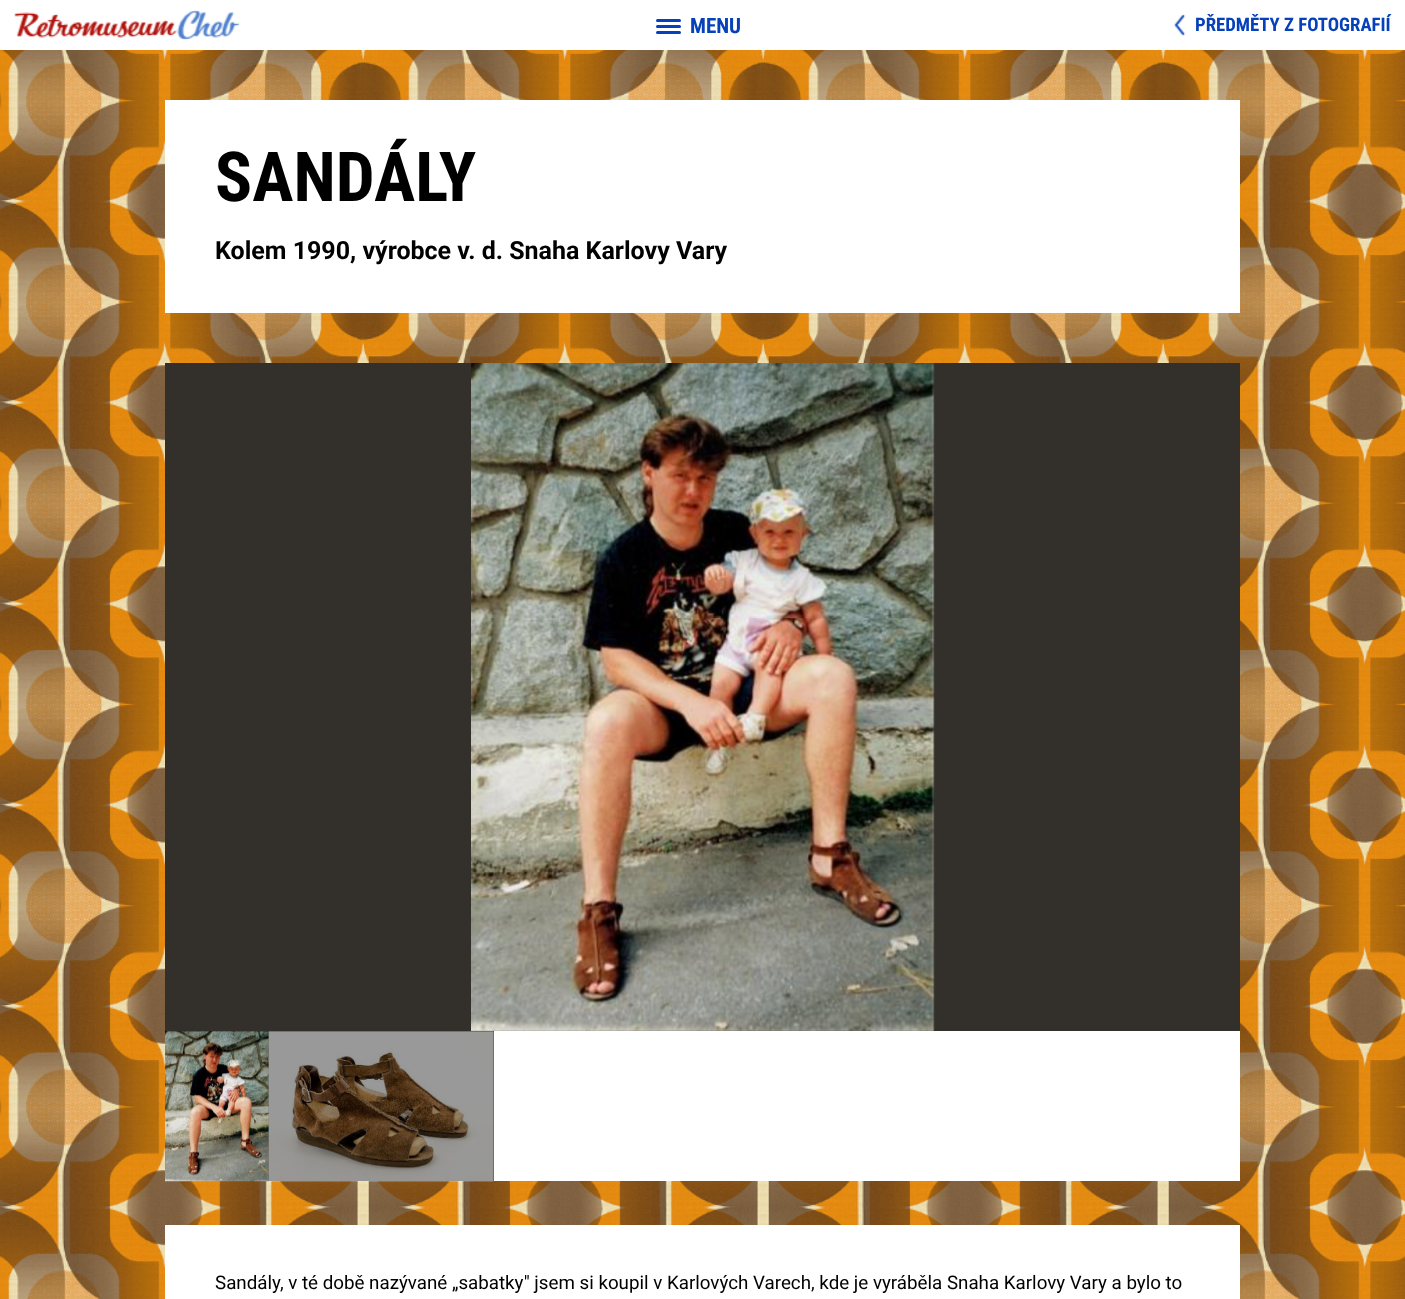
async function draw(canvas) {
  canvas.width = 1405;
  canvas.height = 1299;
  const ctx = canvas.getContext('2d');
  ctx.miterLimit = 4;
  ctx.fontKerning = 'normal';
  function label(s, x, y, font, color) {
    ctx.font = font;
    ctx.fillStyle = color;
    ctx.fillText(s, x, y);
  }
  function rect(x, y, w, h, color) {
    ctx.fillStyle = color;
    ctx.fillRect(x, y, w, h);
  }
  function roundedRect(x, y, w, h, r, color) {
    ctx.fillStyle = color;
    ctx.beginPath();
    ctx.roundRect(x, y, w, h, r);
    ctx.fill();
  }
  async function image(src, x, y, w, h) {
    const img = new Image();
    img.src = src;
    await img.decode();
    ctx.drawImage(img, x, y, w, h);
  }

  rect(0, 0, 1405, 1299, '#fff');
  await image('assets/img1.png', 0, 50, 1405, 1249);
  await image('assets/img2.png', 14, 10, 226, 30);
  roundedRect(656, 19, 25, 3, 1.5, '#0541ba');
  label('MENU', 690, 33, 'bold 21px Roboto Condensed', '#0541ba');
  roundedRect(656, 25, 25, 3, 1.5, '#0541ba');
  roundedRect(656, 31, 25, 3, 1.5, '#0541ba');
  await image('assets/img3.png', 1174, 14, 12, 22);
  label('PŘEDMĚTY Z FOTOGRAFIÍ', 1195, 31, 'bold 18.75px Roboto Condensed', '#0541ba');
  rect(165, 100, 1075, 213, '#fff');
  label('SANDÁLY', 215, 201, 'bold 69px Roboto Condensed', '#000');
  label('Kolem 1990, výrobce v. d. Snaha Karlovy Vary', 215, 259, 'bold 25px Roboto', '#000');
  rect(165, 363, 1075, 668, '#33302c');
  await image('assets/img4.png', 471, 363, 464, 668);
  rect(494, 1031, 746, 150, '#fff');
  rect(165, 1031, 329, 150, '#000');
  await image('assets/img5.png', 165, 1031, 104, 151);
  await image('assets/img6.png', 268, 1031, 226, 151);
  rect(165, 1225, 1075, 74, '#fff');
  label('Sandály, v té době nazývané „sabatky" jsem si koupil v Karlových Varech, kde je vyráběla Snaha Karlovy Vary a bylo to', 215, 1289, '18.75px Roboto', '#000');
}

draw(document.querySelector('canvas'));
